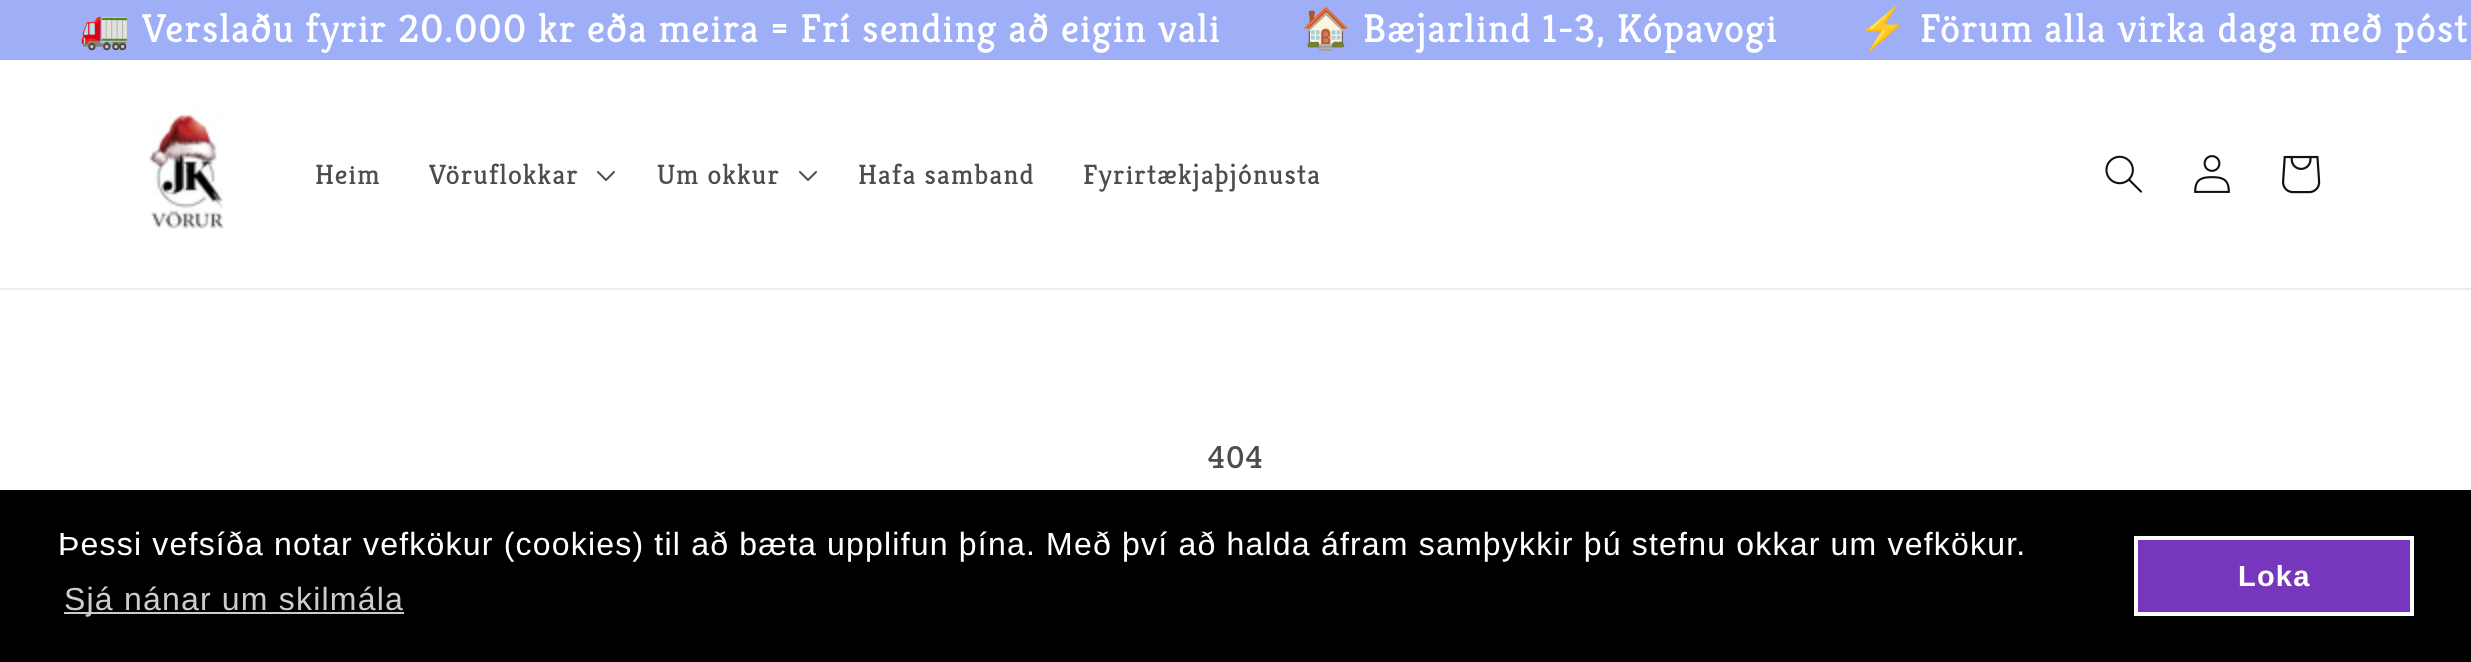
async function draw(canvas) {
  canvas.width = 2471;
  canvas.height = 662;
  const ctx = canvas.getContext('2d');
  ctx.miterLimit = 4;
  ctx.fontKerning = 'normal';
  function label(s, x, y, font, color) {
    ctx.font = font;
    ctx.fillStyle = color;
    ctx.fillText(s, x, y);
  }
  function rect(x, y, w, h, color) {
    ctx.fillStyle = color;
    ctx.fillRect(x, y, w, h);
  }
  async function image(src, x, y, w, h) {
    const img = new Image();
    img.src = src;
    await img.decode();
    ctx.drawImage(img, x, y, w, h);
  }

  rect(0, 0, 2471, 662, '#fff');
  rect(0, 0, 2471, 60, '#9eaff8');
  ctx.letterSpacing = '1.2px';
  label('🚛', 80, 42, '40px Noto Color Emoji', '#fff');
  label('Verslaðu fyrir 20.000 kr eða meira = Frí sending að eigin vali', 142, 42, '40px Kreon', '#fff');
  label('🏠', 1301, 42, '40px Noto Color Emoji', '#fff');
  label('Bæjarlind 1-3, Kópavogi', 1363, 42, '40px Kreon', '#fff');
  label('⚡️', 1858, 42, '40px Noto Color Emoji', '#fff');
  label('Förum alla virka daga með póst', 1920, 42, '40px Kreon', '#fff');
  rect(0, 288, 2471, 2, '#ececec');
  await image('assets/img1.png', 149, 108, 76, 121);
  label('Heim', 315, 184, '28px Kreon', '#4d4d4d');
  label('Vöruflokkar', 429, 184, '28px Kreon', '#4d4d4d');
  await image('assets/img2.png', 597, 171, 18, 10);
  label('Um okkur', 657, 184, '28px Kreon', '#4d4d4d');
  await image('assets/img2.png', 799, 171, 18, 10);
  label('Hafa samband', 858, 184, '28px Kreon', '#4d4d4d');
  label('Fyrirtækjaþjónusta', 1083, 184, '28px Kreon', '#4d4d4d');
  await image('assets/img3.png', 2105, 155, 37, 38);
  await image('assets/img4.png', 2194, 155, 36, 38);
  await image('assets/img5.png', 2282, 155, 39, 39);
  label('404', 1208, 468, '32px Kreon', '#4d4d4d');
  rect(0, 490, 2471, 172, '#000');
  label('Þessi vefsíða notar vefkökur (cookies) til að bæta upplifun þína. Með því að halda áfram samþykkir þú stefnu okkar um vefkökur.', 58, 555, '32px Liberation Sans', '#fff');
  rect(64, 612, 340, 2, '#ccc');
  label('Sjá nánar um skilmála', 64, 610, '32px Liberation Sans', '#ccc');
  ctx.fillStyle = '#7737bd';
  ctx.beginPath();
  ctx.rect(2136, 538, 276, 76);
  ctx.fill();
  ctx.strokeStyle = '#fff';
  ctx.lineWidth = 4;
  ctx.stroke();
  label('Loka', 2238, 586, 'bold 29px Liberation Sans', '#fff');
}

draw(document.querySelector('canvas'));
